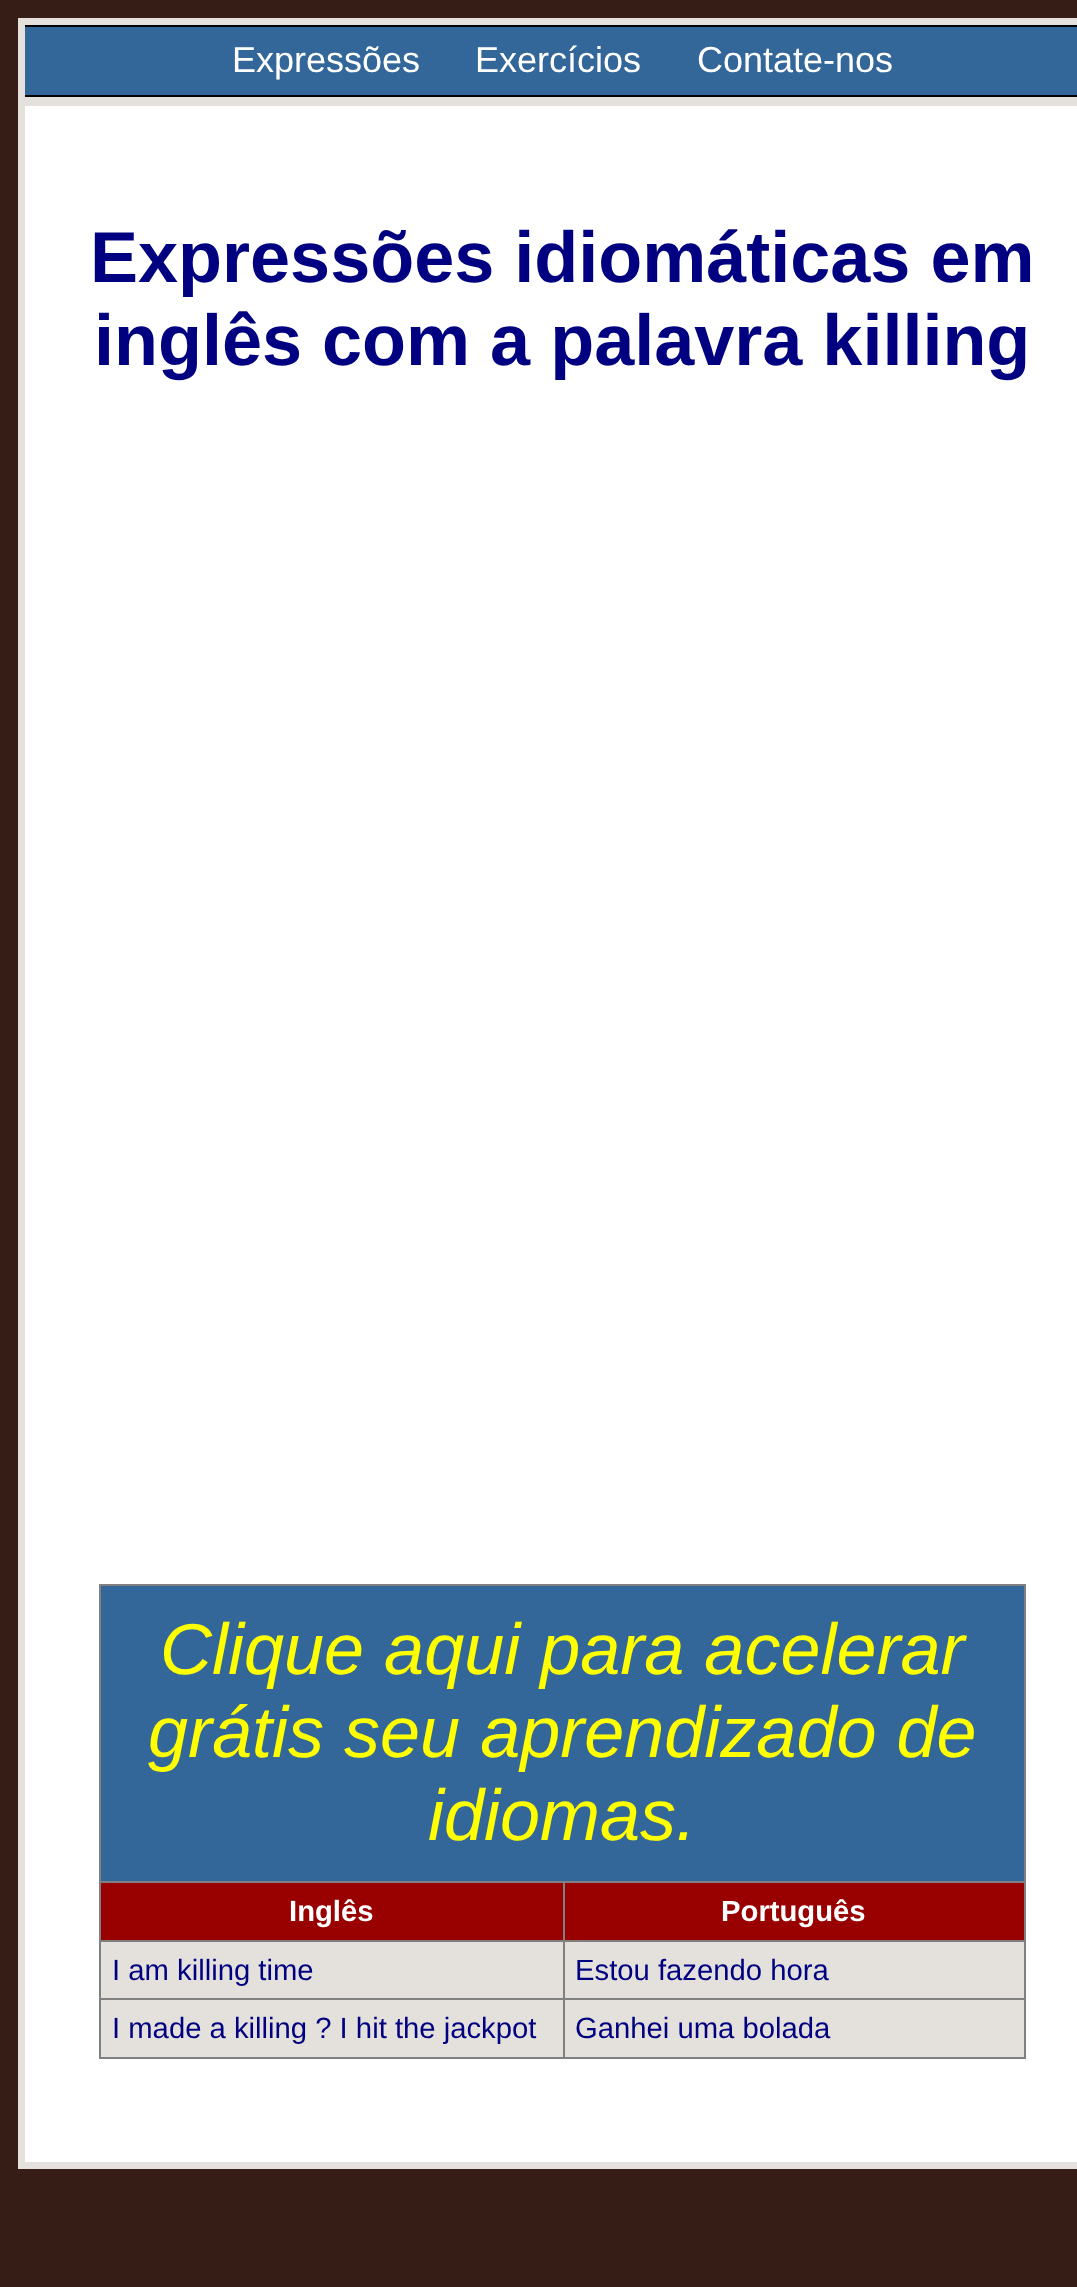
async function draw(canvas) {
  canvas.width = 1077;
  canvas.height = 2287;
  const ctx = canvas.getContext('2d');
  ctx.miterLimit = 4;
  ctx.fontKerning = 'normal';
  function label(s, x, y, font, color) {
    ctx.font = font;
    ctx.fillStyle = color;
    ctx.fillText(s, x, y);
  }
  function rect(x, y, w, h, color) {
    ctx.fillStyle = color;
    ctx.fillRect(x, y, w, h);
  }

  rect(0, 0, 1077, 2287, '#361d16');
  rect(18, 18, 1059, 2151, '#e4e1dc');
  rect(25, 27, 1052, 68, '#369');
  rect(25, 25, 1052, 2, '#000');
  rect(25, 95, 1052, 2, '#000');
  label('Expressões', 232, 72, '36px Liberation Sans', '#fff');
  label('Exercícios', 475, 72, '36px Liberation Sans', '#fff');
  label('Contate-nos', 697, 72, '36px Liberation Sans', '#fff');
  rect(25, 106, 1052, 2056, '#fff');
  label('Expressões idiomáticas em', 90, 282, 'bold 72px Liberation Sans', '#000080');
  label('inglês com a palavra killing', 94, 365, 'bold 72px Liberation Sans', '#000080');
  rect(101, 1942, 923, 115, '#e4e1dc');
  rect(99, 1584, 927, 2, '#808080');
  rect(1024, 1584, 2, 475, '#808080');
  rect(99, 2057, 927, 2, '#808080');
  rect(99, 1584, 2, 475, '#808080');
  rect(101, 1586, 923, 295, '#369');
  label('Clique aqui para acelerar', 160, 1674, 'italic 72px Liberation Sans', '#ff0');
  label('grátis seu aprendizado de', 148, 1757, 'italic 72px Liberation Sans', '#ff0');
  label('idiomas.', 428, 1840, 'italic 72px Liberation Sans', '#ff0');
  rect(101, 1883, 923, 57, '#900');
  rect(563, 1881, 463, 2, '#808080');
  rect(563, 1940, 463, 2, '#808080');
  rect(563, 1998, 463, 2, '#808080');
  rect(563, 1998, 2, 61, '#808080');
  rect(99, 1998, 466, 2, '#808080');
  rect(563, 1940, 2, 60, '#808080');
  rect(99, 1940, 466, 2, '#808080');
  rect(563, 1881, 2, 61, '#808080');
  rect(99, 1881, 466, 2, '#808080');
  label('Inglês', 289, 1921, 'bold 29.25px Liberation Sans', '#fff');
  label('Português', 721, 1921, 'bold 29.25px Liberation Sans', '#fff');
  label('I am killing time', 112, 1980, '29.25px Liberation Sans', '#000080');
  label('Estou fazendo hora', 575, 1980, '29.25px Liberation Sans', '#000080');
  label('I made a killing ? I hit the jackpot', 112, 2038, '29.25px Liberation Sans', '#000080');
  label('Ganhei uma bolada', 575, 2038, '29.25px Liberation Sans', '#000080');
}

draw(document.querySelector('canvas'));
